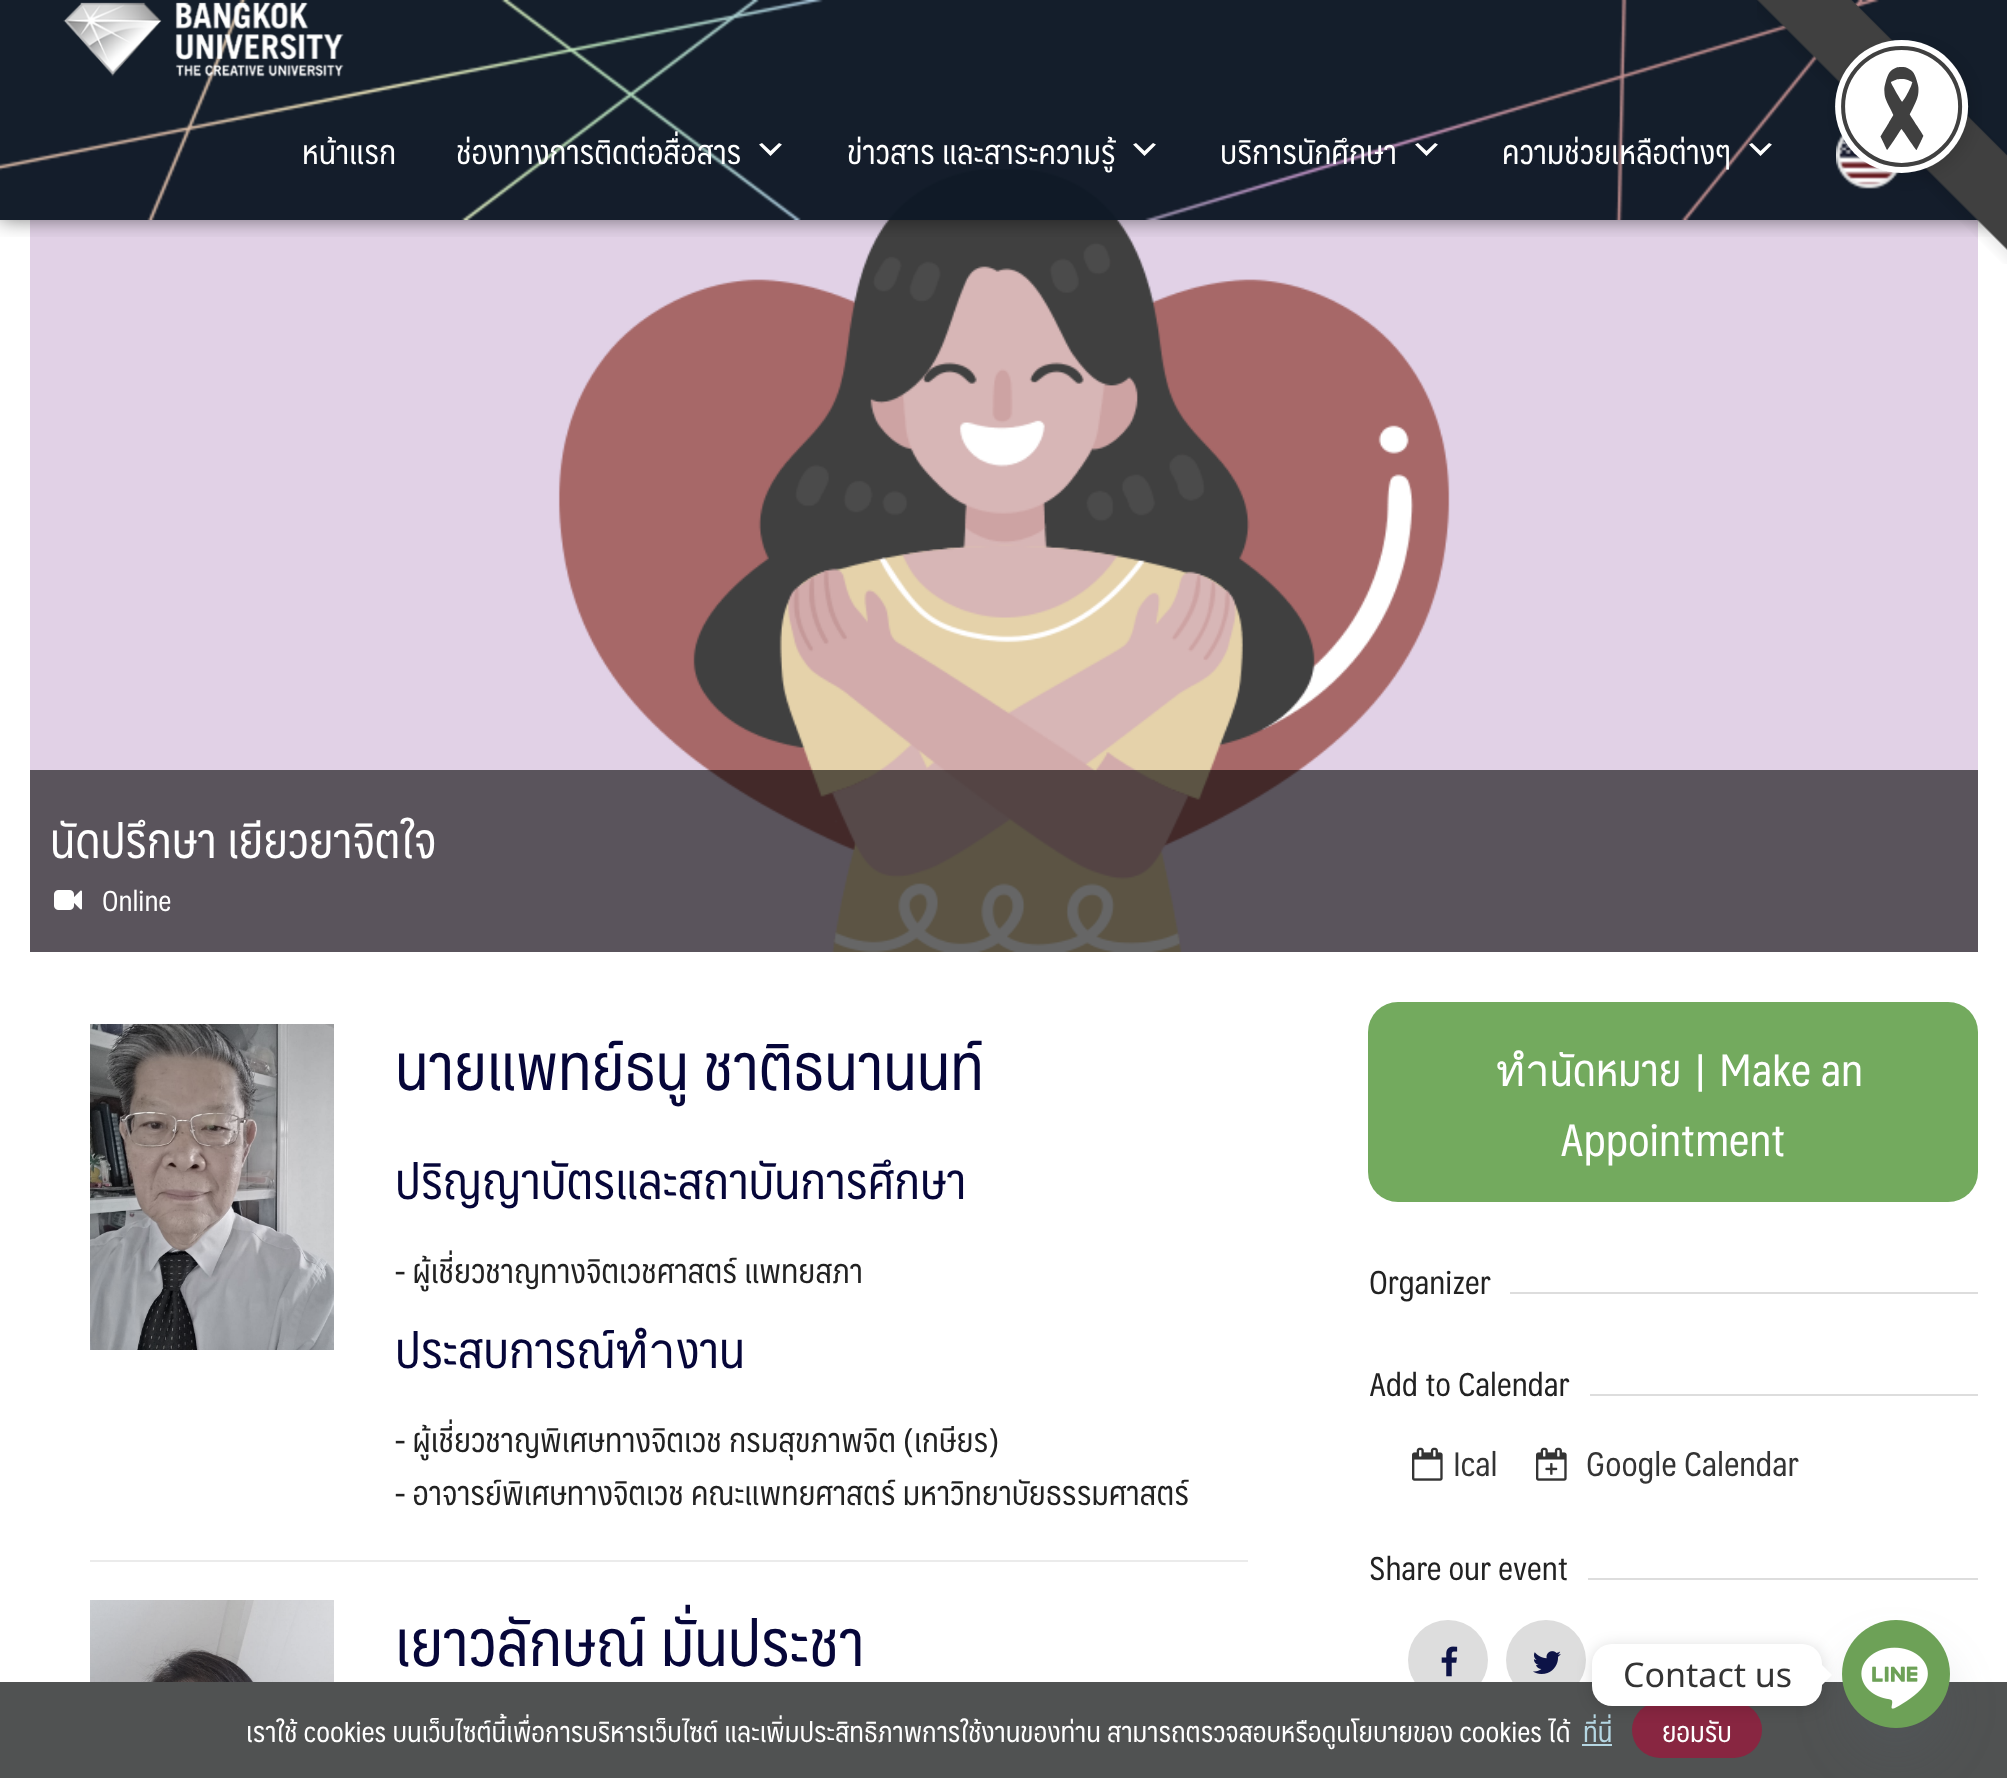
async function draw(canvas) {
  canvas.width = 2007;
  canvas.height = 1778;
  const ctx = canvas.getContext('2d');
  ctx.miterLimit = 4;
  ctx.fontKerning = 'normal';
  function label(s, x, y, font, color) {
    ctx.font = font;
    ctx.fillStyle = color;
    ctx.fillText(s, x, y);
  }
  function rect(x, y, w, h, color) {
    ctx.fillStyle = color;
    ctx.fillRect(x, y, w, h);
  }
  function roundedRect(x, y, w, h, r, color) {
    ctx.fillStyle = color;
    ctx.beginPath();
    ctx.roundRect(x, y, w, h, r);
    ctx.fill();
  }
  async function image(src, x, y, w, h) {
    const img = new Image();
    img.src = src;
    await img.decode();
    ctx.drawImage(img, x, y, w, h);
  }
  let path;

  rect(0, 0, 2007, 1778, '#fff');
  await image('assets/img4.png', 30, 140, 1948, 812);
  ctx.save();
  ctx.beginPath();
  ctx.rect(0, 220, 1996, 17);
  ctx.clip();
  ctx.fillStyle = '#00000080';
  ctx.filter = 'blur(10px)';
  ctx.beginPath();
  ctx.rect(0, 0, 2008, 220);
  ctx.fill();
  ctx.filter = 'none';
  ctx.restore();
  rect(0, 0, 2007, 220, '#0f1a27fa');
  await image('assets/img1.png', 0, 0, 1879, 220);
  await image('assets/img2.png', 63, 2, 281, 75);
  label('หน้าแรก', 302, 164, '33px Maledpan', '#fff');
  label('ช่องทางการติดต่อสื่อสาร', 456, 164, '33px Maledpan', '#fff');
  path = new Path2D('M762 143L770.5 151L779 143L782 144.5L770.5 156L759 144.5Z');
  ctx.fill(path);
  label('ข่าวสาร และสาระความรู้', 847, 164, '33px Maledpan', '#fff');
  path = new Path2D('M1136 143L1144.5 151L1153 143L1156 144.5L1144.5 156L1133 144.5Z');
  ctx.fill(path);
  label('บริการนักศึกษา', 1220, 164, '33px Maledpan', '#fff');
  path = new Path2D('M1418 143L1426.5 151L1435 143L1438 144.5L1426.5 156L1415 144.5Z');
  ctx.fill(path);
  label('ความช่วยเหลือต่างๆ', 1502, 164, '33px Maledpan', '#fff');
  path = new Path2D('M1752 143L1760.5 151L1769 143L1772 144.5L1760.5 156L1749 144.5Z');
  ctx.fill(path);
  await image('assets/img3.png', 1836, 133, 63, 56);
  rect(30, 770, 1948, 182, '#00000099');
  label('นัดปรึกษา เยียวยาจิตใจ', 50, 858, '48px Maledpan', '#fff');
  await image('assets/img5.png', 54, 890, 28, 20);
  label('Online', 102, 911, '28px Maledpan', '#fff');
  await image('assets/img6.png', 90, 1024, 244, 326);
  label('นายแพทย์ธนู ชาติธนานนท์', 395, 1090, '64px Maledpan', '#060639');
  label('ปริญญาบัตรและสถาบันการศึกษา', 395, 1199, '49.5px Maledpan', '#060639');
  label('- ผู้เชี่ยวชาญทางจิตเวชศาสตร์ แพทยสภา', 395, 1283, '33px Maledpan', '#222');
  label('ประสบการณ์ทำงาน', 395, 1368, '49.5px Maledpan', '#060639');
  label('- ผู้เชี่ยวชาญพิเศษทางจิตเวช กรมสุขภาพจิต (เกษียร)', 395, 1452, '33px Maledpan', '#222');
  label('- อาจารย์พิเศษทางจิตเวช คณะแพทยศาสตร์ มหาวิทยาบัยธรรมศาสตร์', 395, 1505, '33px Maledpan', '#222');
  rect(90, 1560, 1158, 2, '#ebebeb');
  await image('assets/img7.png', 90, 1600, 244, 82);
  label('เยาวลักษณ์ มั่นประชา', 395, 1666, '64px Maledpan', '#060639');
  roundedRect(1368, 1002, 610, 200, 30, '#73aa5e');
  label('ทำนัดหมาย | Make an', 1496, 1086, '44px Maledpan', '#fff');
  label('Appointment', 1560, 1156, '44px Maledpan', '#fff');
  label('Organizer', 1369, 1294, '32px Maledpan', '#222');
  rect(1510, 1292, 468, 2, '#ddd');
  label('Add to Calendar', 1369, 1396, '32px Maledpan', '#222');
  rect(1590, 1394, 388, 2, '#ddd');
  await image('assets/img8.png', 1412, 1447, 31, 34);
  label('Ical', 1453, 1476, '33px Maledpan', '#343434');
  await image('assets/img9.png', 1536, 1447, 31, 34);
  label('Google Calendar', 1586, 1476, '33px Maledpan', '#343434');
  label('Share our event', 1369, 1580, '32px Maledpan', '#222');
  rect(1588, 1578, 390, 2, '#ddd');
  ctx.beginPath();
  ctx.arc(1448, 1660, 40, 0, 2 * Math.PI);
  ctx.fill();
  await image('assets/img10.png', 1441, 1646, 17, 31);
  ctx.beginPath();
  ctx.arc(1546, 1660, 40, 0, 2 * Math.PI);
  ctx.fill();
  await image('assets/img11.png', 1533, 1651, 28, 23);
  await image('assets/img12.png', 1757, 0, 250, 264);
  rect(0, 1682, 2007, 96, '#505252');
  ctx.fillStyle = '#59656e29';
  ctx.filter = 'blur(24px)';
  ctx.beginPath();
  ctx.roundRect(1842, 1652, 108, 108, 54);
  ctx.fill();
  ctx.filter = 'none';
  await image('assets/img13.png', 1842, 1620, 108, 108);
  roundedRect(1632, 1702, 130, 56, 28, '#882641');
  ctx.fillStyle = '#00000026';
  ctx.filter = 'blur(7.5px)';
  ctx.beginPath();
  ctx.roundRect(1592, 1646, 230, 62, 20);
  ctx.fill();
  ctx.filter = 'none';
  roundedRect(1592, 1644, 230, 62, 20, '#fff');
  label('Contact us', 1623, 1687, '34px Noto Sans', '#343434');
  ctx.fillStyle = '#fff';
  path = new Path2D('M1822 1685V1665L1832 1675Z');
  ctx.fill(path);
  label('เราใช้ cookies บนเว็บไซต์นี้เพื่อการบริหารเว็บไซต์ และเพิ่มประสิทธิภาพการใช้งานของท่าน สามารถตรวจสอบหรือดูนโยบายของ cookies ได้', 246, 1742, '28px Maledpan', '#fff');
  label('ที่นี่', 1583, 1742, '28px Maledpan', '#b5d7e3');
  rect(1582, 1744, 30, 2, '#b5d7e3');
  label('ยอมรับ', 1662, 1742, '28px Maledpan', '#fff');
}

draw(document.querySelector('canvas'));
